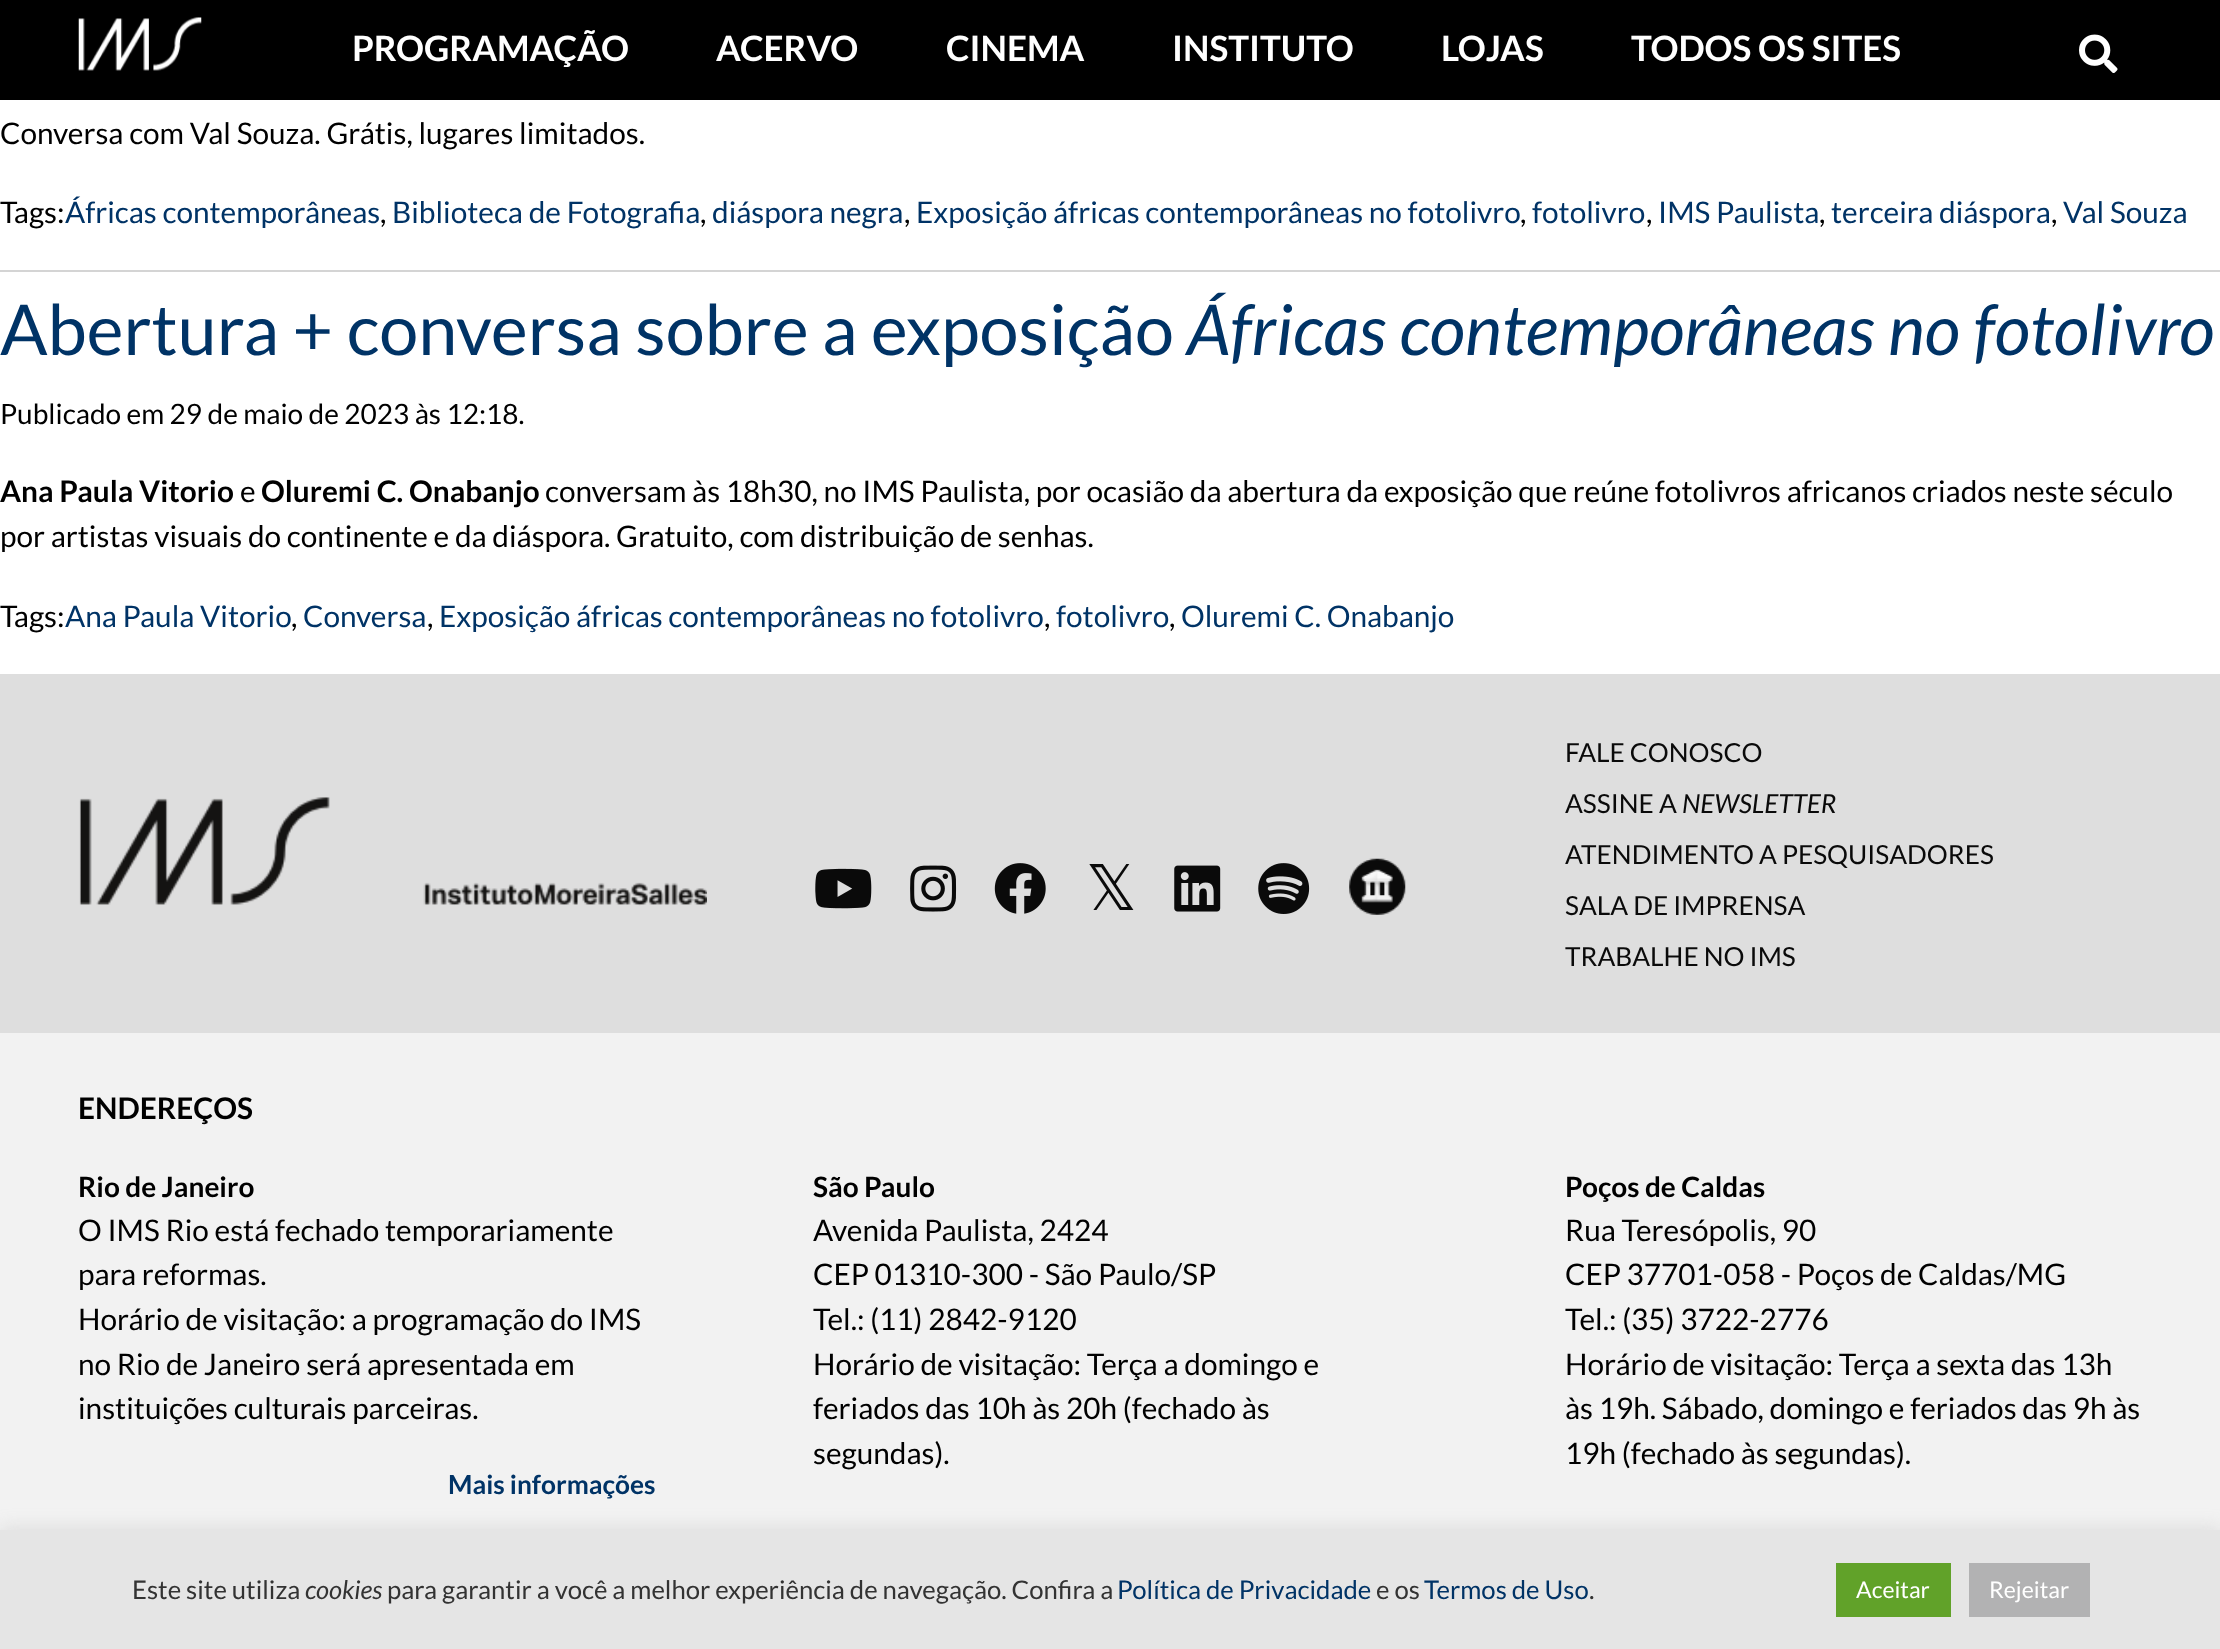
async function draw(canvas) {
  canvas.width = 2220;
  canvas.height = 1649;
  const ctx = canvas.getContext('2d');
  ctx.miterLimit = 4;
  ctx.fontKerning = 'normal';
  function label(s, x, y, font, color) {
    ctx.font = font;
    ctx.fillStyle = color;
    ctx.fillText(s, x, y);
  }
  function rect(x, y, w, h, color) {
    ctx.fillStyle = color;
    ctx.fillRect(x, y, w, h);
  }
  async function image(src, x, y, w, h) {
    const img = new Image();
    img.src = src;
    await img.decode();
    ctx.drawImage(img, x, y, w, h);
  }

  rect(0, 0, 2220, 1649, '#fff');
  rect(0, 0, 2220, 100, '#000');
  await image('assets/img1.png', 78, 17, 124, 54);
  label('PROGRAMAÇÃO', 352, 61, 'bold 35px Lato', '#fff');
  label('ACERVO', 716, 61, 'bold 35px Lato', '#fff');
  label('CINEMA', 946, 61, 'bold 35px Lato', '#fff');
  label('INSTITUTO', 1172, 61, 'bold 35px Lato', '#fff');
  label('LOJAS', 1441, 61, 'bold 35px Lato', '#fff');
  label('TODOS OS SITES', 1631, 61, 'bold 35px Lato', '#fff');
  await image('assets/img2.png', 2079, 34, 39, 39);
  label('Conversa com Val Souza. Grátis, lugares limitados.', 0, 144, '29.75px Lato', '#000');
  label('Tags:', 0, 223, '29.75px Lato', '#000');
  label('Áfricas contemporâneas', 65, 223, '29.75px Lato', '#036');
  label(',', 380, 223, '29.75px Lato', '#000');
  label('Biblioteca de Fotografia', 392, 223, '29.75px Lato', '#036');
  label(',', 700, 223, '29.75px Lato', '#000');
  label('diáspora negra', 712, 223, '29.75px Lato', '#036');
  label(',', 904, 223, '29.75px Lato', '#000');
  label('Exposição áfricas contemporâneas no fotolivro', 916, 223, '29.75px Lato', '#036');
  label(',', 1520, 223, '29.75px Lato', '#000');
  label('fotolivro', 1532, 223, '29.75px Lato', '#036');
  label(',', 1646, 223, '29.75px Lato', '#000');
  label('IMS Paulista', 1658, 223, '29.75px Lato', '#036');
  label(',', 1819, 223, '29.75px Lato', '#000');
  label('terceira diáspora', 1831, 223, '29.75px Lato', '#036');
  label(',', 2051, 223, '29.75px Lato', '#000');
  label('Val Souza', 2063, 223, '29.75px Lato', '#036');
  rect(0, 270, 2220, 2, '#d4d4d4');
  label('Abertura + conversa sobre a exposição', 0, 355, '70px Lato', '#036');
  label('Áfricas contemporâneas no fotolivro', 1187, 355, 'italic 70px Lato', '#036');
  label('Publicado em 29 de maio de 2023 às 12:18.', 0, 424, '28px Lato', '#000');
  label('Ana Paula Vitorio', 0, 502, 'bold 29.75px Lato', '#000');
  label('e', 240, 502, '29.75px Lato', '#000');
  label('Oluremi C. Onabanjo', 261, 502, 'bold 29.75px Lato', '#000');
  label('conversam às 18h30, no IMS Paulista, por ocasião da abertura da exposição que reúne fotolivros africanos criados neste século', 545, 502, '29.75px Lato', '#000');
  label('por artistas visuais do continente e da diáspora. Gratuito, com distribuição de senhas.', 0, 547, '29.75px Lato', '#000');
  label('Tags:', 0, 627, '29.75px Lato', '#000');
  label('Ana Paula Vitorio', 65, 627, '29.75px Lato', '#036');
  label(',', 291, 627, '29.75px Lato', '#000');
  label('Conversa', 303, 627, '29.75px Lato', '#036');
  label(',', 427, 627, '29.75px Lato', '#000');
  label('Exposição áfricas contemporâneas no fotolivro', 439, 627, '29.75px Lato', '#036');
  label(',', 1044, 627, '29.75px Lato', '#000');
  label('fotolivro', 1056, 627, '29.75px Lato', '#036');
  label(',', 1169, 627, '29.75px Lato', '#000');
  label('Oluremi C. Onabanjo', 1181, 627, '29.75px Lato', '#036');
  rect(0, 674, 2220, 359, '#dedede');
  await image('assets/img3.png', 79, 797, 628, 109);
  await image('assets/img4.png', 815, 868, 57, 41);
  await image('assets/img5.png', 910, 865, 47, 47);
  await image('assets/img6.png', 994, 863, 52, 51);
  label('𝕏', 1086, 910, '63px DejaVu Sans', '#0a0a0a');
  await image('assets/img7.png', 1174, 865, 47, 47);
  await image('assets/img8.png', 1258, 863, 52, 51);
  await image('assets/img9.png', 1349, 858, 57, 57);
  label('FALE CONOSCO', 1565, 762, '26.25px Lato', '#0a0a0a');
  label('ASSINE A', 1565, 813, '26.25px Lato', '#0a0a0a');
  label('NEWSLETTER', 1682, 813, 'italic 26.25px Lato', '#0a0a0a');
  label('ATENDIMENTO A PESQUISADORES', 1565, 864, '26.25px Lato', '#0a0a0a');
  label('SALA DE IMPRENSA', 1565, 915, '26.25px Lato', '#0a0a0a');
  label('TRABALHE NO IMS', 1565, 966, '26.25px Lato', '#0a0a0a');
  rect(0, 1033, 2220, 497, '#f2f2f2');
  label('ENDEREÇOS', 78, 1119, 'bold 29.75px Lato', '#000');
  label('Rio de Janeiro', 78, 1197, 'bold 28px Lato', '#000');
  label('O IMS Rio está fechado temporariamente', 78, 1241, '29.75px Lato', '#000');
  label('para reformas.', 78, 1285, '29.75px Lato', '#000');
  label('Horário de visitação: a programação do IMS', 78, 1330, '29.75px Lato', '#000');
  label('no Rio de Janeiro será apresentada em', 78, 1375, '29.75px Lato', '#000');
  label('instituições culturais parceiras.', 78, 1419, '29.75px Lato', '#000');
  label('Mais informações', 448, 1494, 'bold 26.25px Lato', '#036');
  label('São Paulo', 813, 1197, 'bold 28px Lato', '#000');
  label('Avenida Paulista, 2424', 813, 1241, '29.75px Lato', '#000');
  label('CEP 01310-300 - São Paulo/SP', 813, 1285, '29.75px Lato', '#000');
  label('Tel.: (11) 2842-9120', 813, 1330, '29.75px Lato', '#000');
  label('Horário de visitação: Terça a domingo e', 813, 1375, '29.75px Lato', '#000');
  label('feriados das 10h às 20h (fechado às', 813, 1419, '29.75px Lato', '#000');
  label('segundas).', 813, 1464, '29.75px Lato', '#000');
  label('Poços de Caldas', 1565, 1197, 'bold 28px Lato', '#000');
  label('Rua Teresópolis, 90', 1565, 1241, '29.75px Lato', '#000');
  label('CEP 37701-058 - Poços de Caldas/MG', 1565, 1285, '29.75px Lato', '#000');
  label('Tel.: (35) 3722-2776', 1565, 1330, '29.75px Lato', '#000');
  label('Horário de visitação: Terça a sexta das 13h', 1565, 1375, '29.75px Lato', '#000');
  label('às 19h. Sábado, domingo e feriados das 9h às', 1565, 1419, '29.75px Lato', '#000');
  label('19h (fechado às segundas).', 1565, 1464, '29.75px Lato', '#000');
  ctx.fillStyle = '#acabab4d';
  ctx.filter = 'blur(9px)';
  ctx.beginPath();
  ctx.rect(0, 1528, 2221, 121);
  ctx.fill();
  ctx.filter = 'none';
  rect(0, 1530, 2220, 119, '#e5e5e5');
  label('Este site utiliza', 132, 1599, '25.7px Lato', '#333');
  label('cookies', 305, 1599, 'italic 25.7px Lato', '#333');
  label('para garantir a você a melhor experiência de navegação. Confira a', 387, 1599, '25.7px Lato', '#333');
  label('Política de Privacidade', 1117, 1599, '25.7px Lato', '#036');
  label('e os', 1376, 1599, '25.7px Lato', '#333');
  label('Termos de Uso', 1424, 1599, '25.7px Lato', '#036');
  label('.', 1589, 1599, '25.7px Lato', '#333');
  rect(1836, 1563, 115, 54, '#61a229');
  label('Aceitar', 1856, 1598, '23px Lato', '#fff');
  rect(1969, 1563, 121, 54, '#b2b2b3');
  label('Rejeitar', 1989, 1598, '23px Lato', '#fff');
}

draw(document.querySelector('canvas'));
